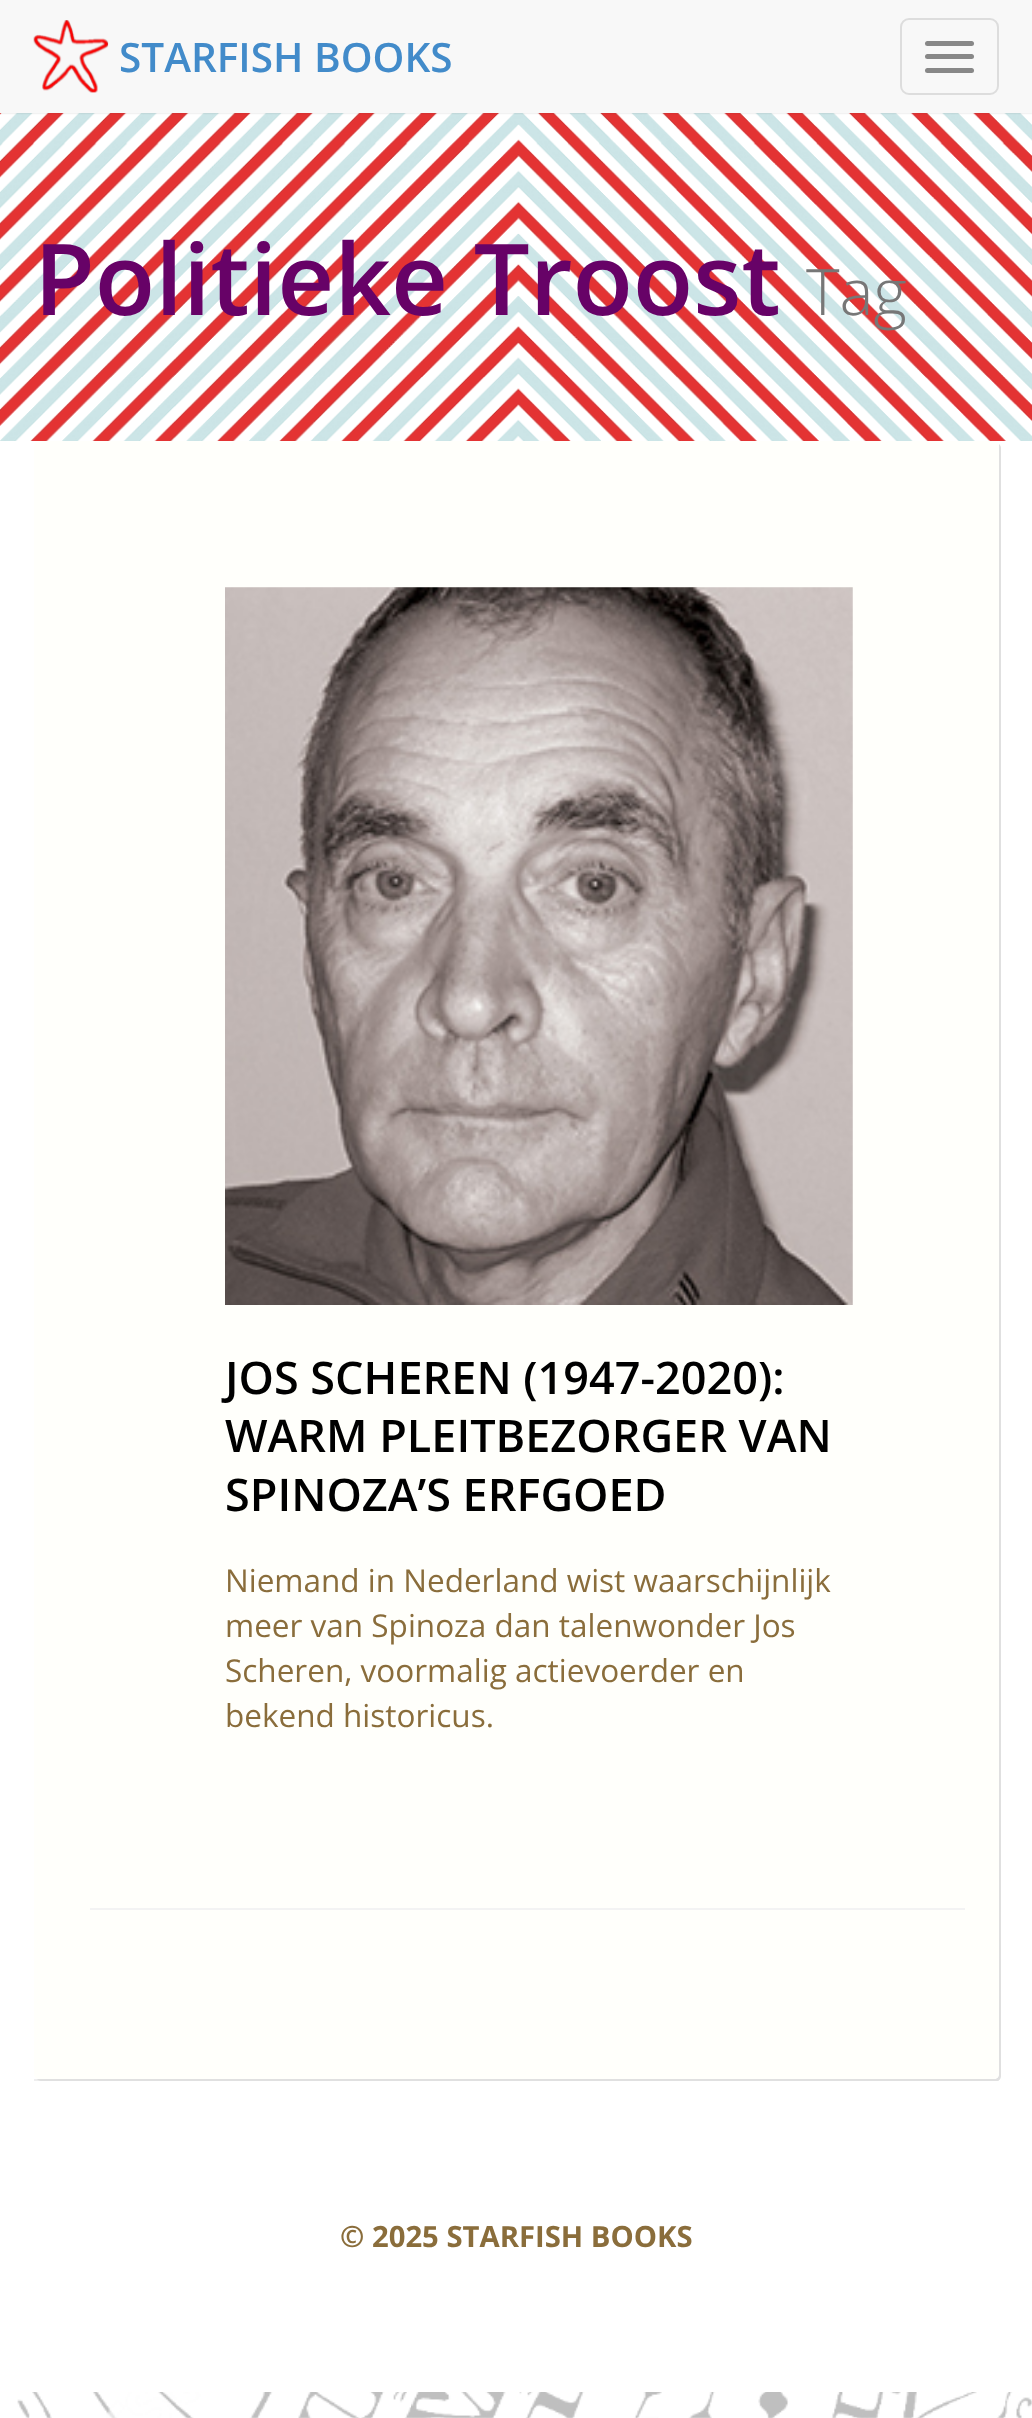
async function draw(canvas) {
  canvas.width = 1032;
  canvas.height = 2418;
  const ctx = canvas.getContext('2d');
  ctx.miterLimit = 4;
  ctx.fontKerning = 'normal';
  function label(s, x, y, font, color) {
    ctx.font = font;
    ctx.fillStyle = color;
    ctx.fillText(s, x, y);
  }
  function rect(x, y, w, h, color) {
    ctx.fillStyle = color;
    ctx.fillRect(x, y, w, h);
  }
  function roundedRect(x, y, w, h, r, color) {
    ctx.fillStyle = color;
    ctx.beginPath();
    ctx.roundRect(x, y, w, h, r);
    ctx.fill();
  }
  async function image(src, x, y, w, h) {
    const img = new Image();
    img.src = src;
    await img.decode();
    ctx.drawImage(img, x, y, w, h);
  }
  let path;

  rect(0, 0, 1032, 2418, '#fff');
  await image('assets/img1.png', 0, 2392, 1032, 26);
  await image('assets/img3.png', 0, 113, 1032, 328);
  rect(0, 113, 1032, 328, '#ffffff33');
  ctx.fillStyle = '#00000026';
  ctx.filter = 'blur(1px)';
  ctx.beginPath();
  ctx.rect(0, 0, 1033, 113);
  ctx.fill();
  ctx.filter = 'none';
  rect(0, 0, 1032, 113, '#f8f8f8');
  await image('assets/img2.png', 33, 20, 76, 73);
  label('STARFISH BOOKS', 119, 72, '600 40.5px Open Sans', '#428bca');
  ctx.beginPath();
  ctx.roundRect(901, 19, 97, 75, 8);
  ctx.strokeStyle = '#ddd';
  ctx.lineWidth = 2;
  ctx.stroke();
  roundedRect(925, 41, 49, 5, 2.5, '#888');
  roundedRect(925, 54, 49, 5, 2.5, '#888');
  roundedRect(925, 68, 49, 5, 2.5, '#888');
  label('Politieke Troost', 34, 315, '600 99px Open Sans', '#670267');
  label('Tag', 806, 315, '300 64px Open Sans', '#777');
  rect(34, 2079, 965, 2, '#eee');
  ctx.fillStyle = '#e0e0e0';
  path = new Path2D('M37 2079C38 2080 39 2081 41 2081H996C999 2081 1001 2079 1001 2076V448C1001 446 1000 445 999 444V2074C999 2077 997 2079 994 2079Z');
  ctx.fill(path);
  roundedRect(34, 441, 965, 1638, 5, '#fffffad9');
  rect(90, 1908, 875, 2, '#f3f3f3');
  await image('assets/img4.png', 225, 587, 628, 718);
  label('JOS SCHEREN (1947-2020):', 225, 1394, '600 45px Open Sans', '#000');
  label('WARM PLEITBEZORGER VAN', 225, 1452, '600 45px Open Sans', '#000');
  label('SPINOZA’S ERFGOED', 225, 1511, '600 45px Open Sans', '#000');
  label('Niemand in Nederland wist waarschijnlijk', 225, 1592, '31.5px Open Sans', '#8a6d3b');
  label('meer van Spinoza dan talenwonder Jos', 225, 1637, '31.5px Open Sans', '#8a6d3b');
  label('Scheren, voormalig actievoerder en', 225, 1682, '31.5px Open Sans', '#8a6d3b');
  label('bekend historicus.', 225, 1727, '31.5px Open Sans', '#8a6d3b');
  label('© 2025 STARFISH BOOKS', 340, 2247, 'bold 29.25px Open Sans', '#8a6d3b');
}

draw(document.querySelector('canvas'));
